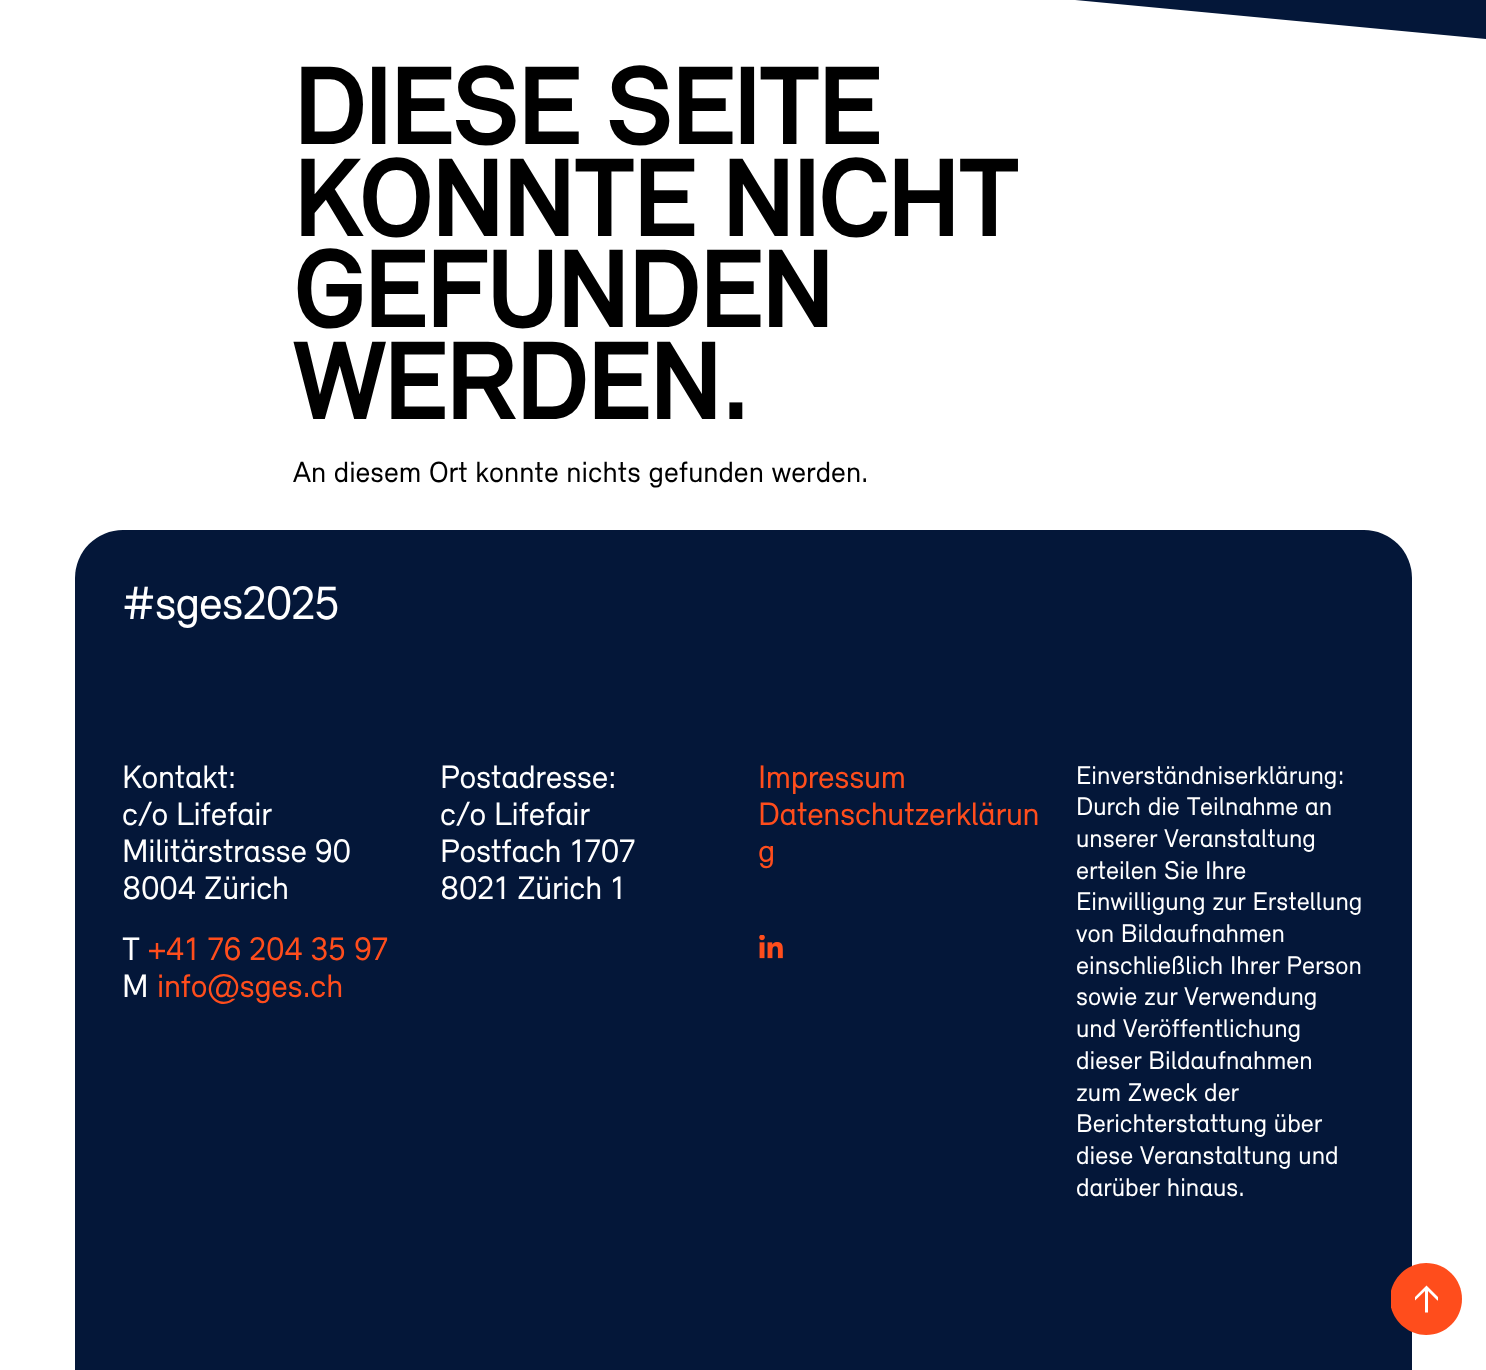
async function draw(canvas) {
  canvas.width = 1486;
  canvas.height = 1370;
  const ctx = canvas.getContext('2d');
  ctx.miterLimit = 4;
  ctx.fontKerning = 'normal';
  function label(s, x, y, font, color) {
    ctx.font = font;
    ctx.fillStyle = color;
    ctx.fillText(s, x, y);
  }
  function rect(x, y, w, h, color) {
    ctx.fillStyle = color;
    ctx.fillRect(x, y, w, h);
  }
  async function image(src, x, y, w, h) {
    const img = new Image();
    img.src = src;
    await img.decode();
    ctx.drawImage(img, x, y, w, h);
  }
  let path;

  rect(0, 0, 1486, 1370, '#fff');
  rect(1075, 0, 411, 39, '#041739');
  ctx.fillStyle = '#fff';
  path = new Path2D('M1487 39V48H-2V-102Z');
  ctx.fill(path);
  rect(75, 710, 1337, 660, '#041739');
  ctx.save();
  ctx.beginPath();
  ctx.rect(1391, 1263, 72, 72);
  ctx.clip();
  ctx.fillStyle = '#ff4d1c';
  path = new Path2D('M1426 1263C1446 1263 1462 1279 1462 1299C1462 1319 1446 1335 1426 1335C1407 1335 1390 1319 1390 1299C1390 1279 1407 1263 1426 1263Z');
  ctx.fill(path);
  ctx.restore();
  ctx.fillStyle = '#fff';
  path = new Path2D('M1438 1300.5V1297L1426.5 1285.5L1415 1297V1300.5L1425 1291V1312.5H1428V1291L1437.5 1300.5Z');
  ctx.fill(path);
  ctx.letterSpacing = '-3.5px';
  label('DIESE SEITE', 293, 144, 'bold 114.5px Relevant', '#000');
  label('KONNTE NICHT', 293, 236, 'bold 114.5px Relevant', '#000');
  label('GEFUNDEN', 293, 327, 'bold 114.5px Relevant', '#000');
  label('WERDEN.', 293, 419, 'bold 114.5px Relevant', '#000');
  ctx.letterSpacing = '0px';
  label('An diesem Ort konnte nichts gefunden werden.', 293, 482, '30px Relevant', '#000');
  ctx.fillStyle = '#041739';
  ctx.beginPath();
  ctx.roundRect(75, 530, 1337, 180, [48, 48, 0, 0]);
  ctx.fill();
  ctx.letterSpacing = '-1px';
  label('#sges2025', 122, 619, '48px Relevant', '#fff');
  ctx.letterSpacing = '-0.3px';
  label('Kontakt:', 122, 788, '33.5px Relevant', '#fff');
  label('c/o Lifefair', 122, 825, '33.5px Relevant', '#fff');
  label('Militärstrasse 90', 122, 862, '33.5px Relevant', '#fff');
  label('8004 Zürich', 122, 899, '33.5px Relevant', '#fff');
  label('T', 122, 960, '33.5px Relevant', '#fff');
  label('+41 76 204 35 97', 148, 960, '33.5px Relevant', '#ff4d1c');
  label('M', 122, 997, '33.5px Relevant', '#fff');
  label('info@sges.ch', 157, 997, '33.5px Relevant', '#ff4d1c');
  label('Postadresse:', 440, 788, '33.5px Relevant', '#fff');
  label('c/o Lifefair', 440, 825, '33.5px Relevant', '#fff');
  label('Postfach 1707', 440, 862, '33.5px Relevant', '#fff');
  label('8021 Zürich 1', 440, 899, '33.5px Relevant', '#fff');
  label('Impressum', 758, 788, '33.5px Relevant', '#ff4d1c');
  label('Datenschutzerklärun', 758, 825, '33.5px Relevant', '#ff4d1c');
  label('g', 758, 862, '33.5px Relevant', '#ff4d1c');
  await image('assets/img1.png', 759, 935, 24, 24);
  ctx.letterSpacing = '0px';
  label('Einverständniserklärung:', 1076, 784, '26.4px Relevant', '#fff');
  label('Durch die Teilnahme an', 1076, 815, '26.4px Relevant', '#fff');
  label('unserer Veranstaltung', 1076, 847, '26.4px Relevant', '#fff');
  label('erteilen Sie Ihre', 1076, 879, '26.4px Relevant', '#fff');
  label('Einwilligung zur Erstellung', 1076, 910, '26.4px Relevant', '#fff');
  label('von Bildaufnahmen', 1076, 942, '26.4px Relevant', '#fff');
  label('einschließlich Ihrer Person', 1076, 974, '26.4px Relevant', '#fff');
  label('sowie zur Verwendung', 1076, 1005, '26.4px Relevant', '#fff');
  label('und Veröffentlichung', 1076, 1037, '26.4px Relevant', '#fff');
  label('dieser Bildaufnahmen', 1076, 1069, '26.4px Relevant', '#fff');
  label('zum Zweck der', 1076, 1101, '26.4px Relevant', '#fff');
  label('Berichterstattung über', 1076, 1132, '26.4px Relevant', '#fff');
  label('diese Veranstaltung und', 1076, 1164, '26.4px Relevant', '#fff');
  label('darüber hinaus.', 1076, 1196, '26.4px Relevant', '#fff');
}

draw(document.querySelector('canvas'));
